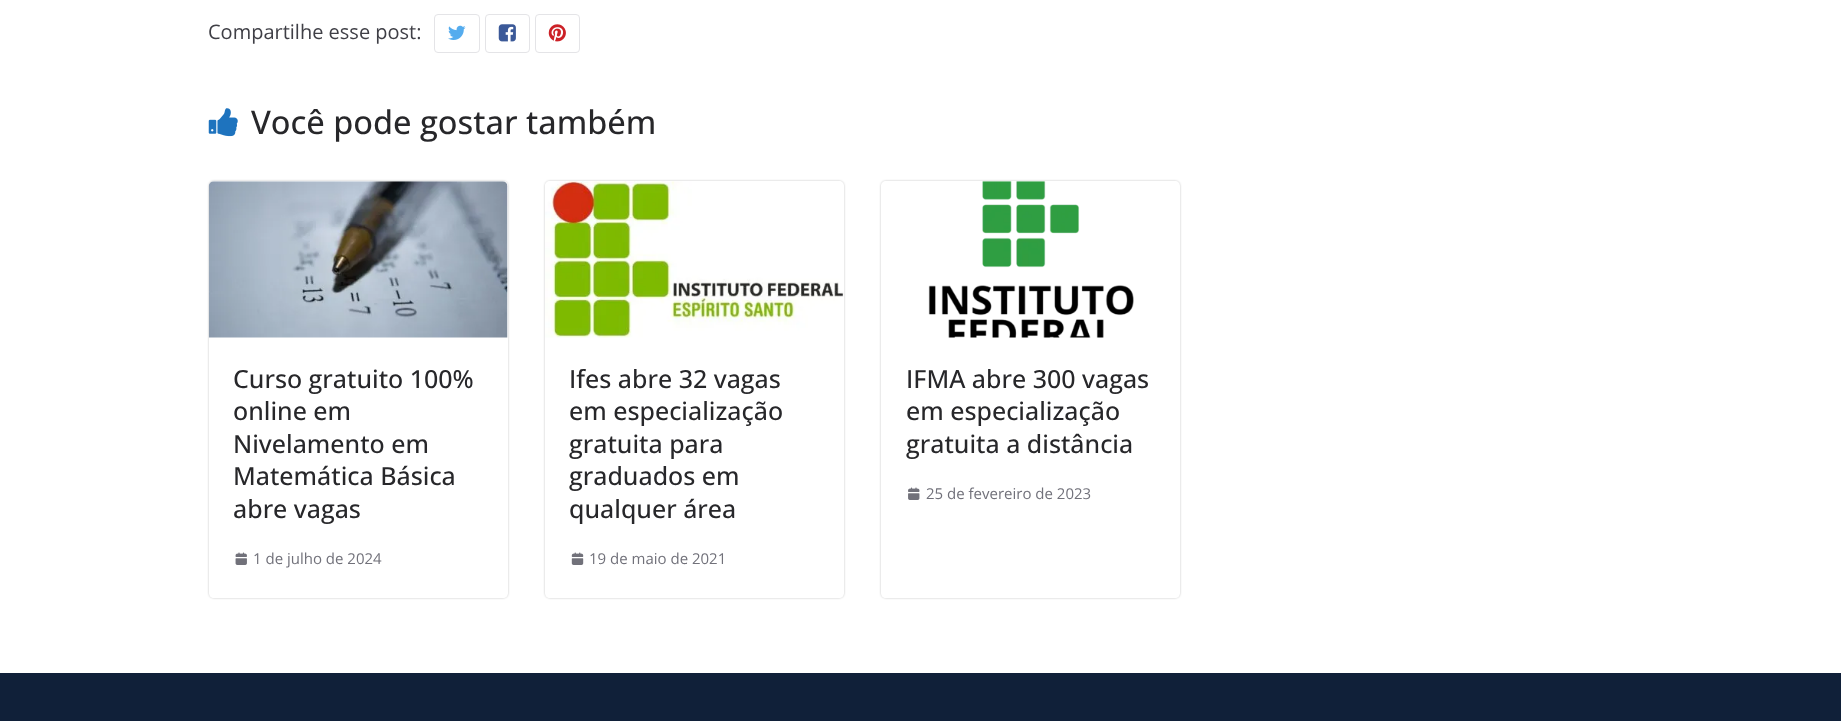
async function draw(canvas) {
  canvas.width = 1841;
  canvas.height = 721;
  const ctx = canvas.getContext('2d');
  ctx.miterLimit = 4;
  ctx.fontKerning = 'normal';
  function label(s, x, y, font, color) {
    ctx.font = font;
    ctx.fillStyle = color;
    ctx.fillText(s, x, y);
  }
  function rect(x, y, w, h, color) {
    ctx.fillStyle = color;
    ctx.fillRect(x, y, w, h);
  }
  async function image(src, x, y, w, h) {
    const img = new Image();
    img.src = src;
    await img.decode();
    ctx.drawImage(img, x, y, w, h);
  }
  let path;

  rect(0, 0, 1841, 721, '#102039');
  rect(0, 0, 1841, 673, '#fff');
  label('Compartilhe esse post:', 208, 39, '20px Open Sans', '#3f3f46');
  ctx.beginPath();
  ctx.roundRect(434.5, 14.5, 45, 38, 3.5);
  ctx.strokeStyle = '#e4e4e7';
  ctx.stroke();
  await image('assets/img1.png', 448, 25, 18, 15);
  ctx.beginPath();
  ctx.roundRect(485.5, 14.5, 44, 38, 3.5);
  ctx.stroke();
  await image('assets/img2.png', 498, 24, 18, 18);
  ctx.beginPath();
  ctx.roundRect(535.5, 14.5, 44, 38, 3.5);
  ctx.stroke();
  await image('assets/img3.png', 548, 24, 18, 18);
  await image('assets/img4.png', 208, 108, 30, 29);
  label('Você pode gostar também', 251, 134, '500 32.5px Open Sans', '#27272a');
  ctx.save();
  path = new Path2D('M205 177H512V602H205ZM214 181H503C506 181 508 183 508 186V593C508 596 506 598 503 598H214C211 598 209 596 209 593V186C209 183 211 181 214 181Z');
  ctx.clip(path, 'evenodd');
  ctx.fillStyle = '#0000003d';
  ctx.filter = 'blur(1px)';
  ctx.beginPath();
  ctx.roundRect(209, 181, 299, 417, 5);
  ctx.fill();
  ctx.filter = 'none';
  ctx.restore();
  await image('assets/img5.png', 208, 181, 300, 157);
  label('Curso gratuito 100%', 233, 388, '500 25px Open Sans', '#27272a');
  label('online em', 233, 420, '500 25px Open Sans', '#27272a');
  label('Nivelamento em', 233, 453, '500 25px Open Sans', '#27272a');
  label('Matemática Básica', 233, 485, '500 25px Open Sans', '#27272a');
  label('abre vagas', 233, 518, '500 25px Open Sans', '#27272a');
  await image('assets/img6.png', 235, 552, 12, 13);
  label('1 de julho de 2024', 253, 564, '15px Open Sans', '#71717a');
  ctx.save();
  path = new Path2D('M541 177H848V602H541ZM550 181H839C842 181 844 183 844 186V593C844 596 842 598 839 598H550C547 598 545 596 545 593V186C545 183 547 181 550 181Z');
  ctx.clip(path, 'evenodd');
  ctx.fillStyle = '#0000003d';
  ctx.filter = 'blur(1px)';
  ctx.beginPath();
  ctx.roundRect(545, 181, 299, 417, 5);
  ctx.fill();
  ctx.filter = 'none';
  ctx.restore();
  await image('assets/img7.png', 545, 181, 299, 157);
  label('Ifes abre 32 vagas', 569, 388, '500 25px Open Sans', '#27272a');
  label('em especialização', 569, 420, '500 25px Open Sans', '#27272a');
  label('gratuita para', 569, 453, '500 25px Open Sans', '#27272a');
  label('graduados em', 569, 485, '500 25px Open Sans', '#27272a');
  label('qualquer área', 569, 518, '500 25px Open Sans', '#27272a');
  await image('assets/img8.png', 571, 552, 13, 13);
  label('19 de maio de 2021', 589, 564, '15px Open Sans', '#71717a');
  ctx.save();
  path = new Path2D('M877 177H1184V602H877ZM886 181H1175C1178 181 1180 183 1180 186V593C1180 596 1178 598 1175 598H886C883 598 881 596 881 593V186C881 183 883 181 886 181Z');
  ctx.clip(path, 'evenodd');
  ctx.fillStyle = '#0000003d';
  ctx.filter = 'blur(1px)';
  ctx.beginPath();
  ctx.roundRect(881, 181, 299, 417, 5);
  ctx.fill();
  ctx.filter = 'none';
  ctx.restore();
  await image('assets/img9.png', 928, 181, 206, 157);
  label('IFMA abre 300 vagas', 906, 388, '500 25px Open Sans', '#27272a');
  label('em especialização', 906, 420, '500 25px Open Sans', '#27272a');
  label('gratuita a distância', 906, 453, '500 25px Open Sans', '#27272a');
  await image('assets/img10.png', 908, 487, 12, 13);
  label('25 de fevereiro de 2023', 926, 499, '15px Open Sans', '#71717a');
}

draw(document.querySelector('canvas'));
